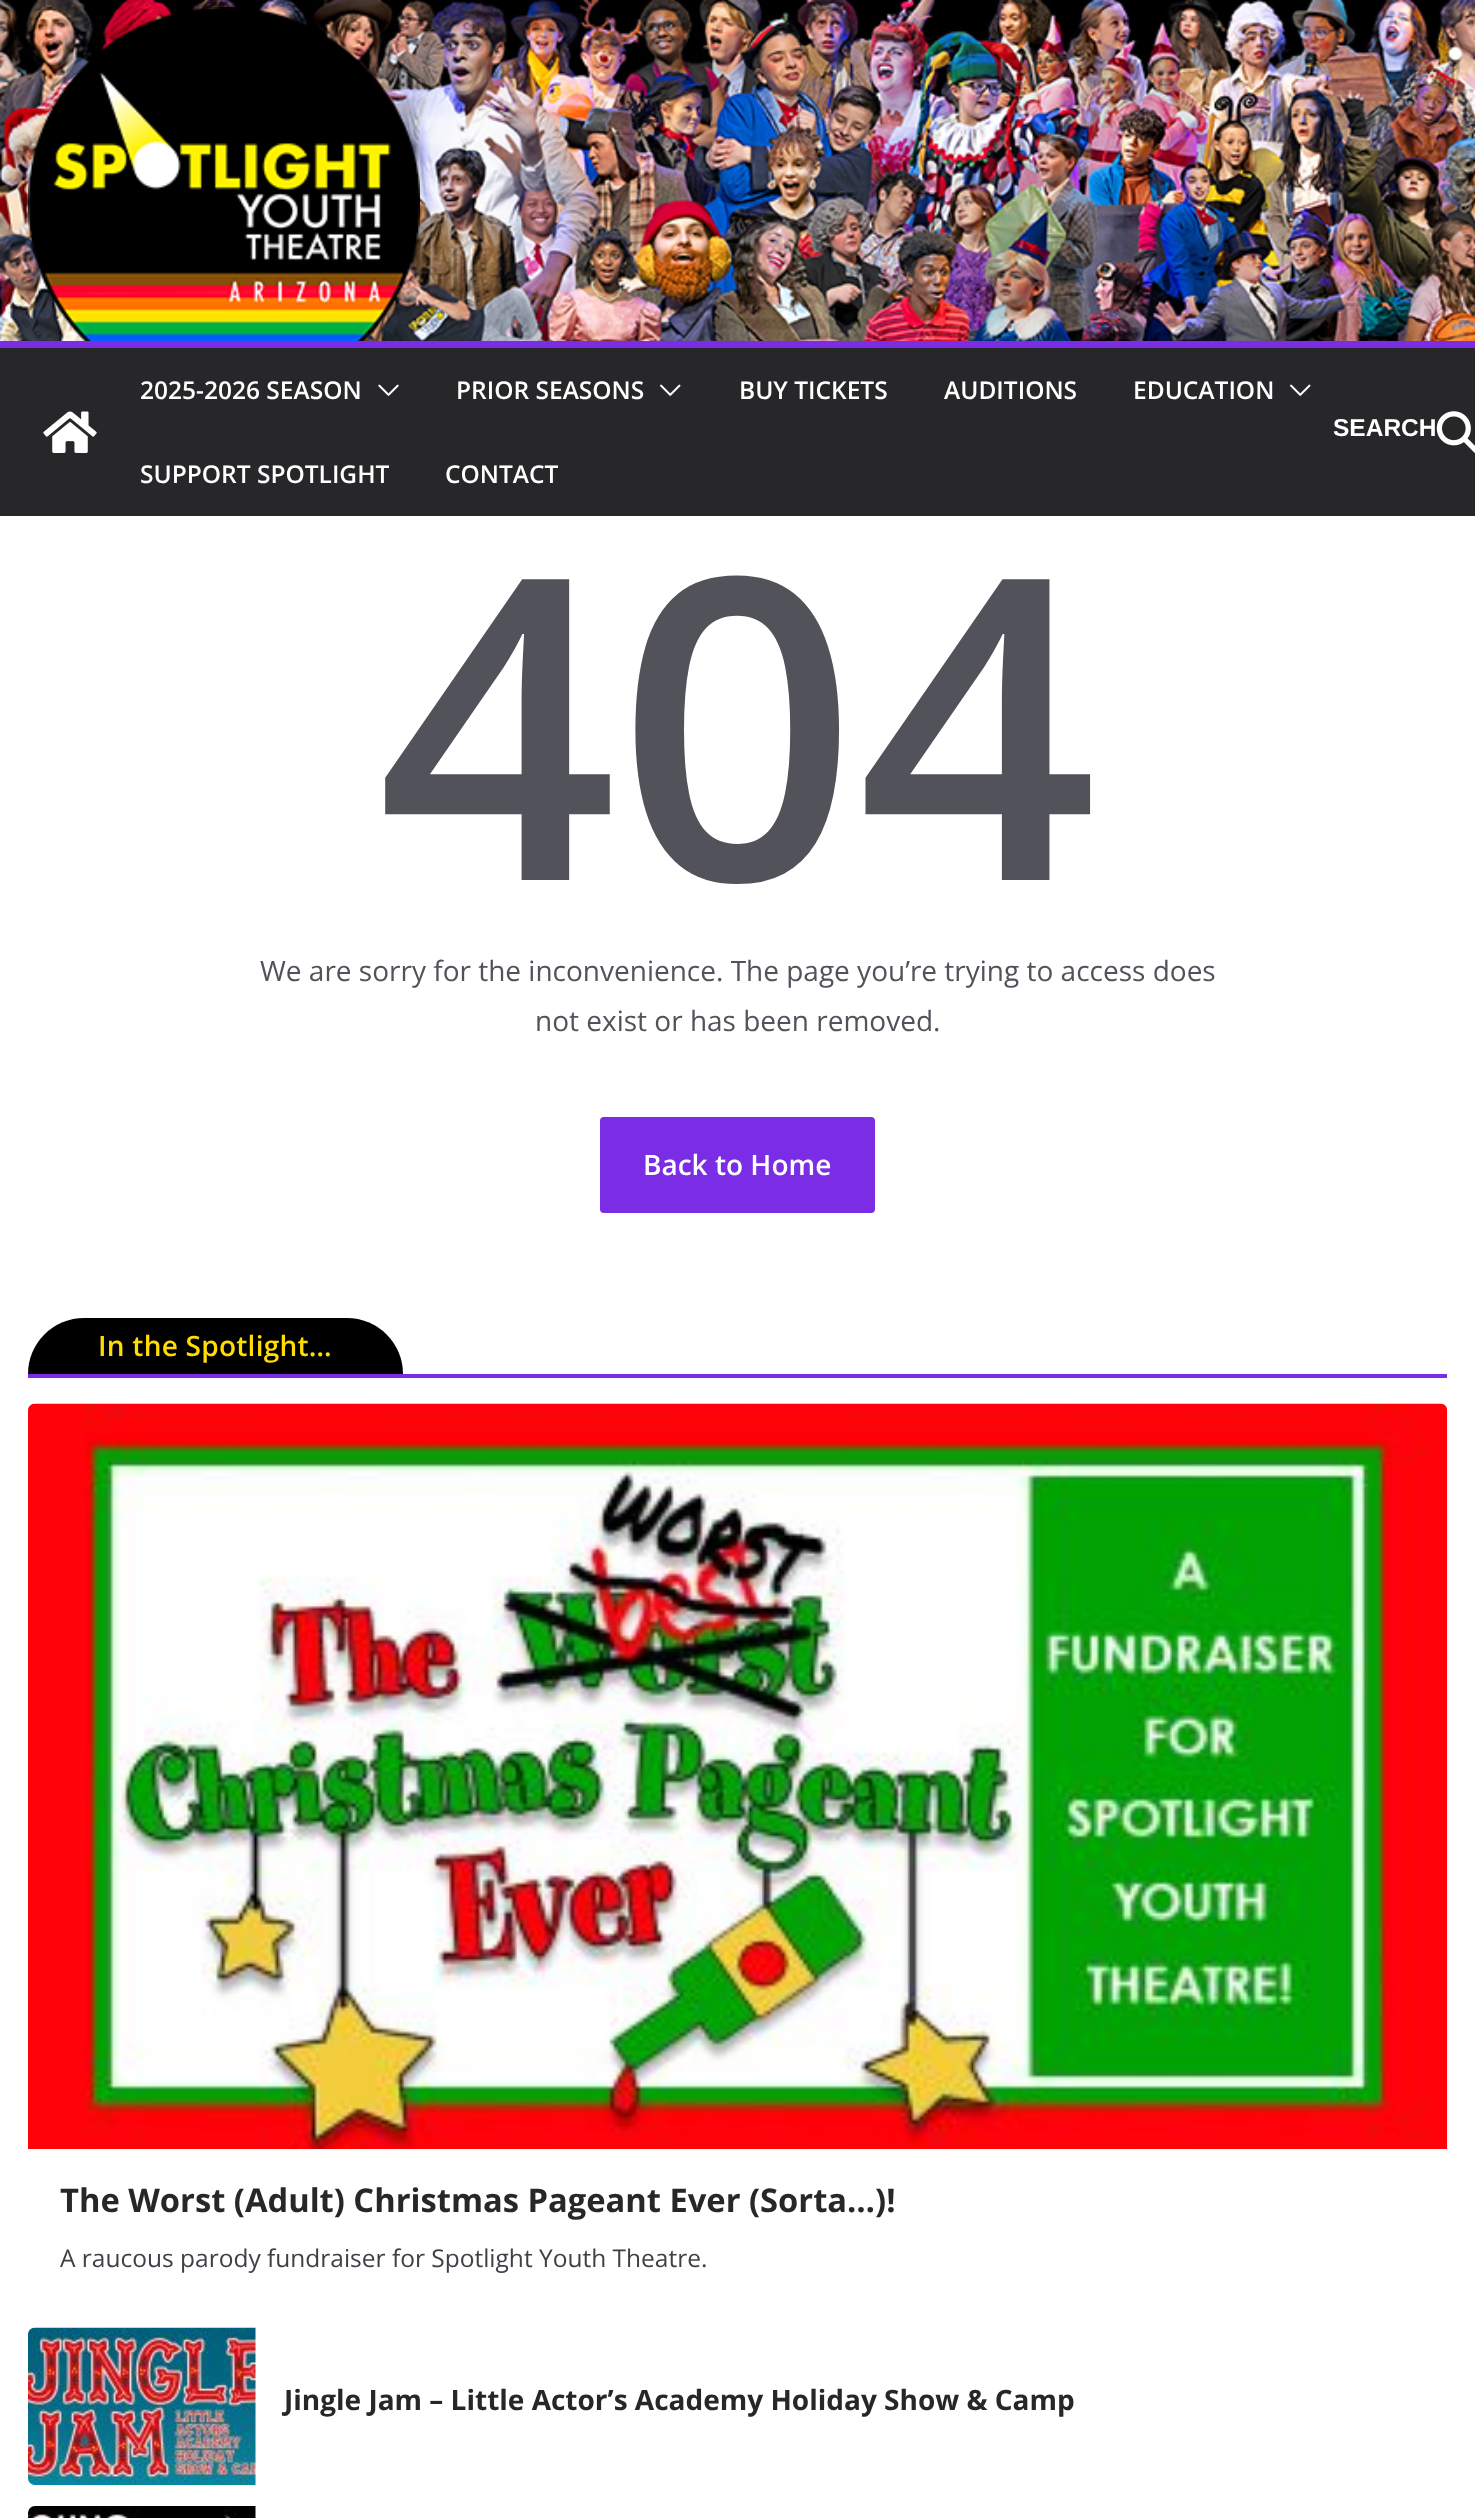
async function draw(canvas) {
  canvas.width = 1475;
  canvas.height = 2518;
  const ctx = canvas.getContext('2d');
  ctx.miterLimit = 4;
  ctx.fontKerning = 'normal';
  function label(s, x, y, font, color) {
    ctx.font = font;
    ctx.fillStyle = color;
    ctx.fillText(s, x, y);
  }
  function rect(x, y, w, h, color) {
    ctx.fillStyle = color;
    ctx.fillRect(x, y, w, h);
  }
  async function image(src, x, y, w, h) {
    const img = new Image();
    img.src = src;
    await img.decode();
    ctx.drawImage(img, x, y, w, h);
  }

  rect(0, 0, 1475, 2518, '#fff');
  await image('assets/img1.png', 0, 0, 1475, 341);
  await image('assets/img2.png', 28, 7, 392, 334);
  rect(0, 348, 1475, 168, '#27272a');
  rect(0, 341, 1475, 7, '#7a2de5');
  await image('assets/img3.png', 43, 411, 54, 42);
  label('2025-2026 SEASON', 140, 399, '600 24.5px Open Sans', '#fff');
  await image('assets/img4.png', 378, 384, 21, 12);
  label('PRIOR SEASONS', 456, 399, '600 24.5px Open Sans', '#fff');
  await image('assets/img5.png', 660, 384, 21, 12);
  label('BUY TICKETS', 739, 399, '600 24.5px Open Sans', '#fff');
  label('AUDITIONS', 944, 399, '600 24.5px Open Sans', '#fff');
  label('EDUCATION', 1133, 399, '600 24.5px Open Sans', '#fff');
  await image('assets/img5.png', 1290, 384, 21, 12);
  label('SUPPORT SPOTLIGHT', 140, 483, '600 24.5px Open Sans', '#fff');
  label('CONTACT', 445, 483, '600 24.5px Open Sans', '#fff');
  label('SEARCH', 1333, 436, 'bold 24.5px Liberation Sans', '#fff');
  await image('assets/img6.png', 1436, 411, 39, 42);
  label('404', 377, 880, '600 420px Open Sans', '#52525b');
  label('We are sorry for the inconvenience. The page you’re trying to access does', 260, 981, '28px Open Sans', '#52525b');
  label('not exist or has been removed.', 535, 1031, '28px Open Sans', '#52525b');
  ctx.fillStyle = '#7a2de5';
  ctx.beginPath();
  ctx.roundRect(601, 1118, 273, 94, 3);
  ctx.fill();
  ctx.strokeStyle = '#7a2de5';
  ctx.lineWidth = 2;
  ctx.stroke();
  label('Back to Home', 643, 1175, '600 28px Open Sans', '#fff');
  rect(28, 1374, 1419, 4, '#7a2de5');
  ctx.fillStyle = '#000';
  ctx.beginPath();
  ctx.roundRect(28, 1318, 375, 56, [56, 56, 0, 0]);
  ctx.fill();
  ctx.letterSpacing = '0.25px';
  label('In the Spotlight…', 98, 1356, '600 28px Open Sans', '#fd0');
  await image('assets/img7.png', 28, 1403, 1420, 746);
  ctx.letterSpacing = '0px';
  label('The Worst (Adult) Christmas Pageant Ever (Sorta…)!', 60, 2212, 'bold 32.7px Open Sans', '#27272a');
  label('A raucous parody fundraiser for Spotlight Youth Theatre.', 60, 2267, '24.5px Open Sans', '#3f3f46');
  await image('assets/img8.png', 28, 2327, 228, 158);
  label('Jingle Jam – Little Actor’s Academy Holiday Show & Camp', 284, 2410, 'bold 28px Open Sans', '#27272a');
  await image('assets/img9.png', 28, 2506, 228, 12);
}

draw(document.querySelector('canvas'));
